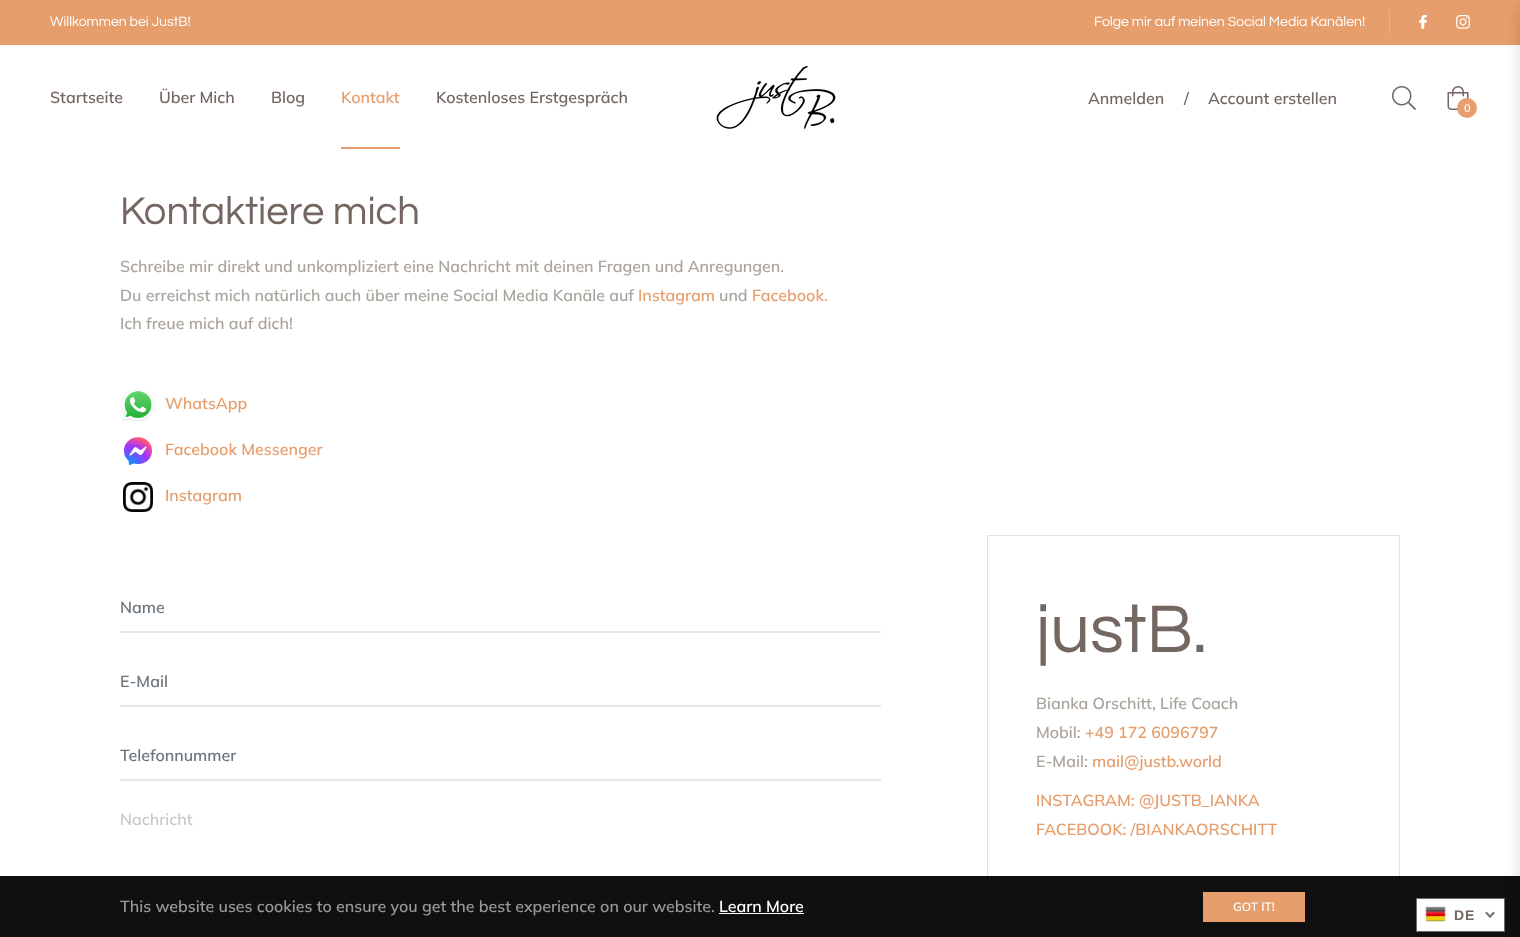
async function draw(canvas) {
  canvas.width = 1520;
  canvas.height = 937;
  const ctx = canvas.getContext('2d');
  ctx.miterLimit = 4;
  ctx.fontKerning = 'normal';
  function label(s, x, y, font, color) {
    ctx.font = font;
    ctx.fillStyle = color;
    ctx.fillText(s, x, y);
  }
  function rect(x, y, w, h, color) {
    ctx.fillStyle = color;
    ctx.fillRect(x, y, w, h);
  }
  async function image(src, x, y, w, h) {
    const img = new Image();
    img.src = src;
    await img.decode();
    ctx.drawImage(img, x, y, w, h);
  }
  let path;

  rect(0, 0, 1520, 937, '#fff');
  ctx.fillStyle = '#00000033';
  ctx.filter = 'blur(0.5px)';
  ctx.beginPath();
  ctx.rect(0, 0, 1520, 150);
  ctx.fill();
  ctx.filter = 'none';
  rect(0, 45, 1520, 105, '#fff');
  rect(0, 0, 1520, 45, '#e69e6c');
  label('Willkommen bei JustB!', 50, 26, '14px Questrial', '#fff');
  rect(1389, 10, 1, 25, '#ebb189');
  label('Folge mir auf meinen Social Media Kanälen!', 1094, 26, '14px Questrial', '#fff');
  await image('assets/img1.png', 1419, 14, 8, 15);
  await image('assets/img2.png', 1456, 15, 14, 14);
  label('Startseite', 50, 103, '600 16px Muli', '#746661');
  label('Über Mich', 159, 103, '600 16px Muli', '#746661');
  label('Blog', 271, 103, '600 16px Muli', '#746661');
  label('Kontakt', 341, 103, '600 16px Muli', '#e69e6c');
  rect(341, 147, 59, 2, '#e69e6c');
  label('Kostenloses Erstgespräch', 436, 103, '600 16px Muli', '#746661');
  await image('assets/img3.png', 716, 66, 120, 63);
  label('Anmelden', 1088, 104, '600 16px Muli', '#746661');
  label('/', 1184, 104, '600 16px Muli', '#746661');
  label('Account erstellen', 1208, 104, '600 16px Muli', '#746661');
  await image('assets/img4.png', 1392, 86, 24, 24);
  await image('assets/img5.png', 1447, 86, 22, 24);
  ctx.fillStyle = '#e69e6c';
  ctx.beginPath();
  ctx.arc(1467, 108, 10, 0, 2 * Math.PI);
  ctx.fill();
  label('0', 1464, 112, '600 11px Muli', '#fff');
  ctx.strokeStyle = '#dee2e6';
  ctx.strokeRect(987.5, 535.5, 412, 385);
  rect(0, 876, 1520, 61, '#101010');
  ctx.fillStyle = '#00000026';
  ctx.filter = 'blur(8px)';
  ctx.beginPath();
  ctx.rect(1520, 8, 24, 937);
  ctx.fill();
  ctx.filter = 'none';
  label('Kontaktiere mich', 120, 224, '40px Questrial', '#746661');
  label('Schreibe mir direkt und unkompliziert eine Nachricht mit deinen Fragen und Anregungen.', 120, 272, '600 16px Muli', '#aba49d');
  label('Du erreichst mich natürlich auch über meine Social Media Kanäle auf', 120, 301, '600 16px Muli', '#aba49d');
  label('Instagram', 638, 301, '600 16px Muli', '#e69e6c');
  label('und', 719, 301, '600 16px Muli', '#aba49d');
  label('Facebook.', 752, 301, '600 16px Muli', '#e69e6c');
  label('Ich freue mich auf dich!', 120, 329, '600 16px Muli', '#aba49d');
  await image('assets/img6.png', 121, 388, 34, 34);
  label('WhatsApp', 165, 409, '600 16px Muli', '#e69e6c');
  await image('assets/img7.png', 124, 437, 28, 28);
  label('Facebook Messenger', 165, 455, '600 16px Muli', '#e69e6c');
  await image('assets/img8.png', 123, 482, 30, 30);
  label('Instagram', 165, 501, '600 16px Muli', '#e69e6c');
  rect(120, 631, 761, 2, '#e3e7e8');
  label('Name', 120, 613, '600 16px Muli', '#6c757d');
  rect(120, 705, 761, 2, '#e3e7e8');
  label('E-Mail', 120, 687, '600 16px Muli', '#6c757d');
  rect(120, 779, 761, 2, '#e3e7e8');
  label('Telefonnummer', 120, 761, '600 16px Muli', '#6c757d');
  label('Nachricht', 120, 825, '600 16px Muli', '#cdc8c4');
  label('justB.', 1036, 652, '70px Questrial', '#746661');
  label('Bianka Orschitt, Life Coach', 1036, 709, '600 16px Muli', '#aba49d');
  label('Mobil:', 1036, 738, '600 16px Muli', '#aba49d');
  label('+49 172 6096797', 1085, 738, '600 16px Muli', '#e69e6c');
  label('E-Mail:', 1036, 767, '600 16px Muli', '#aba49d');
  label('mail@justb.world', 1092, 767, '600 16px Muli', '#e69e6c');
  label('INSTAGRAM: @JUSTB_IANKA', 1036, 806, '600 16px Muli', '#e69e6c');
  label('FACEBOOK: /BIANKAORSCHITT', 1036, 835, '600 16px Muli', '#e69e6c');
  label('This website uses cookies to ensure you get the best experience on our website.', 120, 912, '600 16px Muli', '#999');
  label('Learn More', 719, 912, '600 16px Muli', '#fff');
  rect(719, 913, 85, 1, '#fff');
  rect(1203, 892, 102, 30, '#e69e6c');
  label('GOT IT!', 1233, 911, '600 12px Muli', '#fff');
  ctx.beginPath();
  ctx.rect(1416.5, 898.5, 88, 33);
  ctx.fill();
  ctx.strokeStyle = '#746661';
  ctx.stroke();
  await image('assets/img9.png', 1425, 906, 21, 16);
  ctx.letterSpacing = '1px';
  label('DE', 1454, 920, 'bold 14px Liberation Sans', '#746661');
  ctx.fillStyle = '#827571';
  path = new Path2D('M1493.5 911.5L1495 913L1490 918L1488.5 916.5Z');
  ctx.fill(path);
  path = new Path2D('M1486.5 911.5L1491.5 916.5L1490 918L1485 913Z');
  ctx.fill(path);
}

draw(document.querySelector('canvas'));
